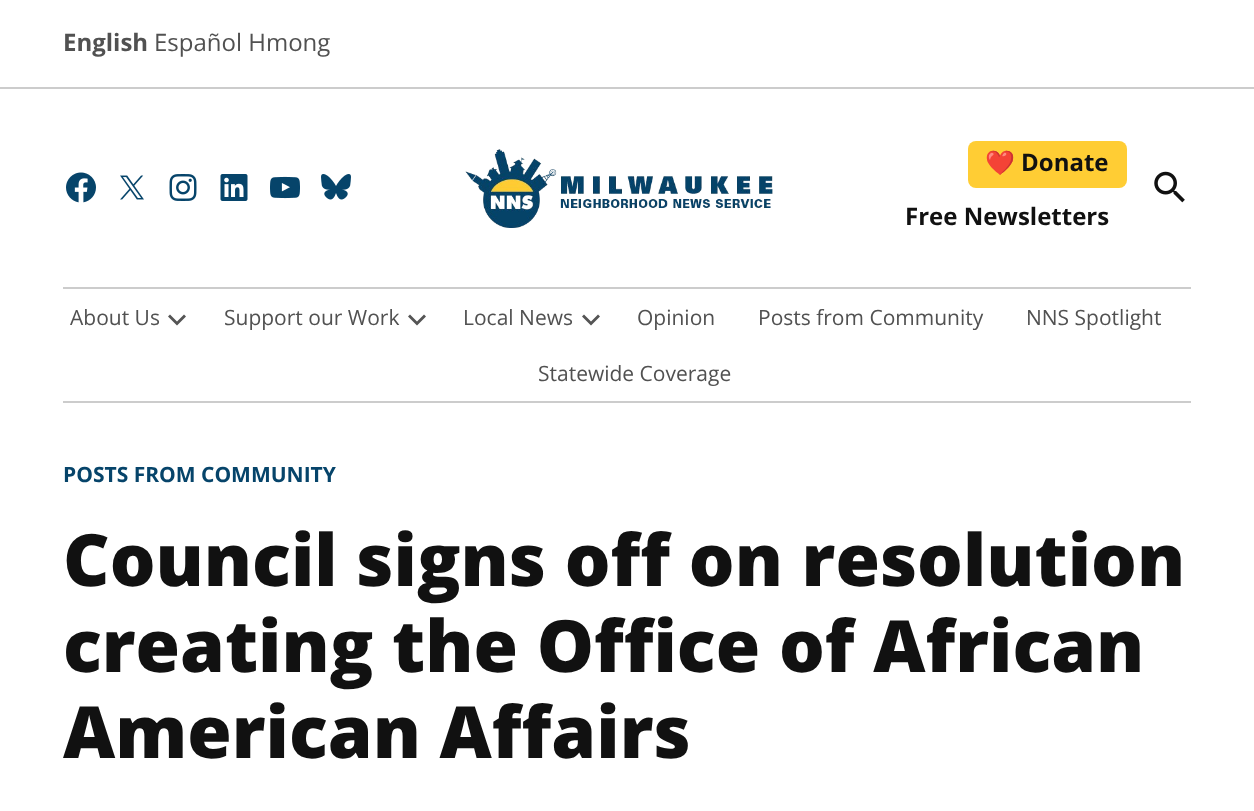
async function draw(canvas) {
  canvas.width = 1254;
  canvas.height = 811;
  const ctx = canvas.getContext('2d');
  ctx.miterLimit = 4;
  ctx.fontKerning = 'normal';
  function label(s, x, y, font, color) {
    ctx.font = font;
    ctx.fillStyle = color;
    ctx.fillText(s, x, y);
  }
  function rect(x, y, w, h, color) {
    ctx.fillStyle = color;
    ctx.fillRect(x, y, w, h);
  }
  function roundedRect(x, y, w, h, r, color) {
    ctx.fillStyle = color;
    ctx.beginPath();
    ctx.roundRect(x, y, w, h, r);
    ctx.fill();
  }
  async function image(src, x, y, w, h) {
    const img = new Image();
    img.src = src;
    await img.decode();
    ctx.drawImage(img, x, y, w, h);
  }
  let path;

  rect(0, 0, 1254, 811, '#fff');
  rect(0, 87, 1254, 2, '#ccc');
  label('English', 63, 51, 'bold 24px Open Sans', '#515151');
  label('Español Hmong', 154, 51, '24px Open Sans', '#515151');
  await image('assets/img1.png', 66, 172, 30, 31);
  await image('assets/img2.png', 120, 175, 24, 25);
  await image('assets/img3.png', 169, 174, 28, 27);
  await image('assets/img4.png', 220, 174, 28, 27);
  await image('assets/img5.png', 270, 176, 30, 23);
  await image('assets/img6.png', 321, 174, 30, 26);
  await image('assets/img7.png', 465, 149, 308, 79);
  roundedRect(968, 141, 159, 47, 8, '#ffcd34');
  label('❤️', 985, 171, 'bold 24px Noto Color Emoji', '#111');
  label('Donate', 1021, 171, 'bold 24px Open Sans', '#111');
  label('Free Newsletters', 905, 225, 'bold 24px Open Sans', '#111');
  await image('assets/img8.png', 1154, 171, 31, 32);
  rect(63, 287, 1128, 2, '#ccc');
  rect(63, 401, 1128, 2, '#ccc');
  label('About Us', 70, 325, '21px Open Sans', '#515151');
  ctx.fillStyle = '#555';
  path = new Path2D('M170 314.5L177 321.5L184 314.5L186 316.5L177 325.5L168 316.5Z');
  ctx.fill(path);
  label('Support our Work', 224, 325, '21px Open Sans', '#515151');
  ctx.fillStyle = '#555';
  path = new Path2D('M410 314.5L417 321.5L424 314.5L426 316.5L417 325.5L408 316.5Z');
  ctx.fill(path);
  label('Local News', 463, 325, '21px Open Sans', '#515151');
  ctx.fillStyle = '#555';
  path = new Path2D('M584 314.5L591 321.5L598 314.5L600 316.5L591 325.5L582 316.5Z');
  ctx.fill(path);
  label('Opinion', 637, 325, '21px Open Sans', '#515151');
  label('Posts from Community', 758, 325, '21px Open Sans', '#515151');
  label('NNS Spotlight', 1026, 325, '21px Open Sans', '#515151');
  label('Statewide Coverage', 538, 381, '21px Open Sans', '#515151');
  label('POSTS FROM COMMUNITY', 63, 482, 'bold 21px Open Sans', '#06446a');
  label('Council signs off on resolution', 63, 586, '800 72px Open Sans', '#111');
  label('creating the Office of African', 63, 672, '800 72px Open Sans', '#111');
  label('American Affairs', 63, 758, '800 72px Open Sans', '#111');
}

draw(document.querySelector('canvas'));
